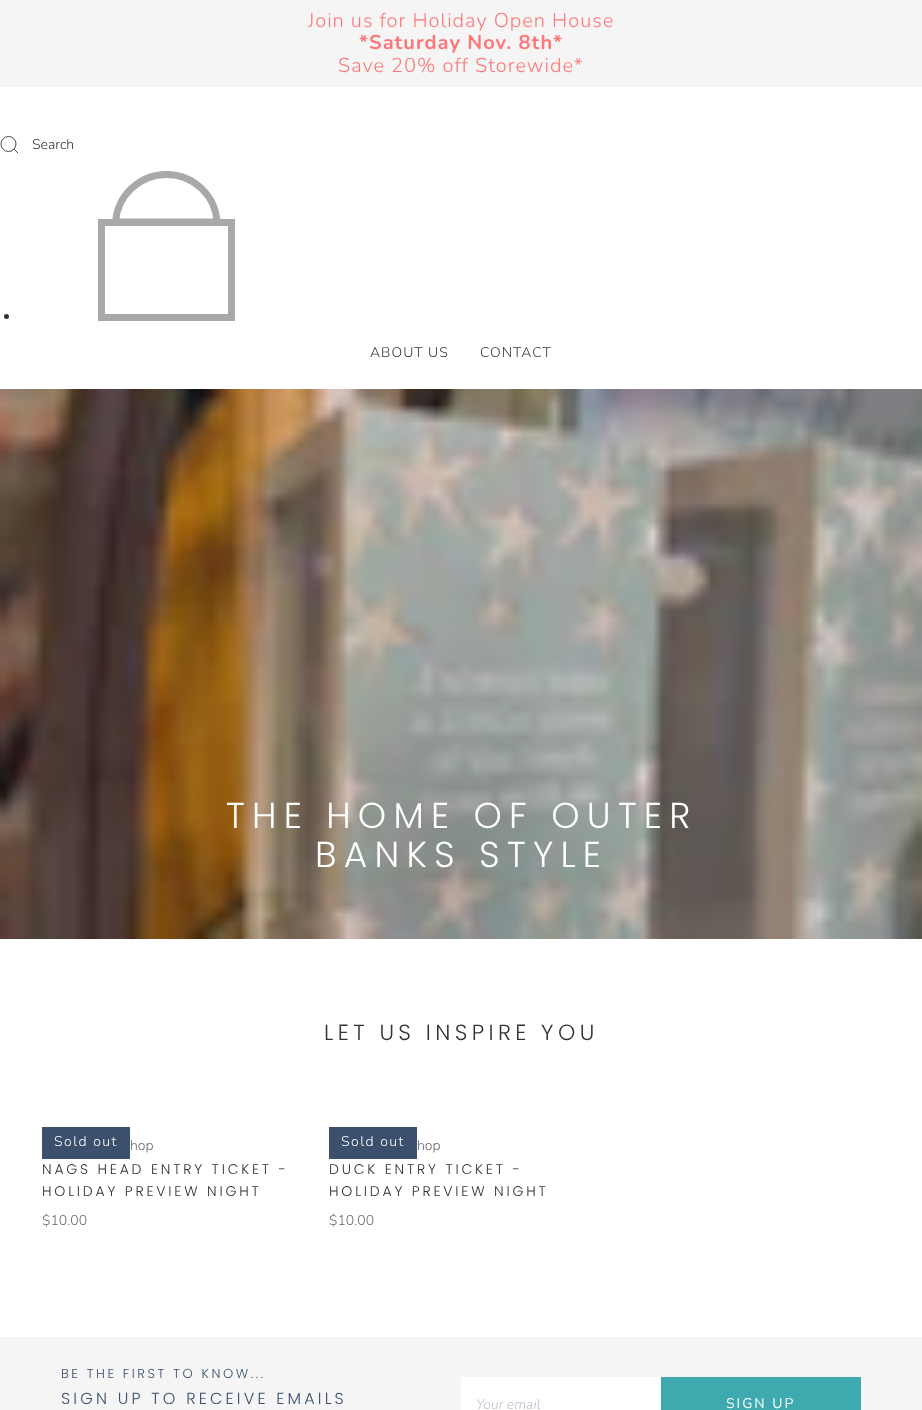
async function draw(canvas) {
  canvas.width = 922;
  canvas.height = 1410;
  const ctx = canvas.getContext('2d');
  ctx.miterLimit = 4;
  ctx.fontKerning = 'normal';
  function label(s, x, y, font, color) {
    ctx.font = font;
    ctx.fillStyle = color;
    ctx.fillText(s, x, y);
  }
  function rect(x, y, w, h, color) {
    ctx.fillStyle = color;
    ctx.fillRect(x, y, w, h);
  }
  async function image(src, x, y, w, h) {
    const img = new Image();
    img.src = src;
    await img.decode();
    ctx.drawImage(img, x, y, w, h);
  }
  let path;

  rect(0, 0, 922, 1410, '#fff');
  rect(0, 0, 922, 87, '#f5f5f5');
  ctx.letterSpacing = '1px';
  label('Join us for Holiday Open House', 308, 27, '300 20px Nunito', '#fe7777');
  label('*Saturday Nov. 8th*', 359, 49, 'bold 20px Nunito', '#fe7777');
  label('Save 20% off Storewide*', 338, 72, '300 20px Nunito', '#fe7777');
  ctx.beginPath();
  ctx.arc(8.5, 144, 7.5, 0, 2 * Math.PI);
  ctx.strokeStyle = '#333';
  ctx.lineWidth = 0.9;
  ctx.stroke();
  ctx.save();
  ctx.beginPath();
  ctx.rect(0, 136, 18, 17);
  ctx.clip();
  path = new Path2D('M14 149L19.5 154.5');
  ctx.stroke(path);
  ctx.restore();
  ctx.letterSpacing = '0px';
  label('Search', 32, 149, '300 14px Nunito', '#333');
  path = new Path2D('M115.5 222C117.5 195.5 139.5 174.5 166.5 174.5C193.5 174.5 215.5 195.5 217 222Z');
  ctx.strokeStyle = '#a9a9a9';
  ctx.lineWidth = 6.8;
  ctx.stroke(path);
  ctx.beginPath();
  ctx.arc(6.5, 316.5, 2.5, 0, 2 * Math.PI);
  ctx.fill();
  ctx.lineWidth = 7;
  ctx.strokeRect(101.5, 222.5, 130, 95);
  ctx.letterSpacing = '1px';
  label('ABOUT US', 370, 357, '300 14px Nunito', '#333');
  label('CONTACT', 480, 357, '300 14px Nunito', '#333');
  await image('assets/img1.png', 0, 389, 922, 550);
  ctx.letterSpacing = '7.25px';
  label('THE HOME OF OUTER', 226, 828, '300 36px Poppins', '#fff');
  label('BANKS STYLE', 315, 867, '300 36px Poppins', '#fff');
  ctx.letterSpacing = '4.4px';
  label('LET US INSPIRE YOU', 324, 1040, '300 22px Poppins', '#333');
  rect(42, 1127, 88, 32, '#3b506d');
  ctx.letterSpacing = '1.5px';
  label('Sold out', 54, 1146, '300 14px Nunito', '#fff');
  ctx.letterSpacing = '0px';
  label('hop', 130, 1150, '300 14px Nunito', '#666');
  ctx.letterSpacing = '2.8px';
  label('NAGS HEAD ENTRY TICKET -', 42, 1174, '300 14px Poppins', '#333');
  label('HOLIDAY PREVIEW NIGHT', 42, 1196, '300 14px Poppins', '#333');
  ctx.letterSpacing = '0px';
  label('$10.00', 42, 1225, '300 14px Nunito', '#666');
  rect(329, 1127, 88, 32, '#3b506d');
  ctx.letterSpacing = '1.5px';
  label('Sold out', 341, 1146, '300 14px Nunito', '#fff');
  ctx.letterSpacing = '0px';
  label('hop', 417, 1150, '300 14px Nunito', '#666');
  ctx.letterSpacing = '2.8px';
  label('DUCK ENTRY TICKET -', 329, 1174, '300 14px Poppins', '#333');
  label('HOLIDAY PREVIEW NIGHT', 329, 1196, '300 14px Poppins', '#333');
  ctx.letterSpacing = '0px';
  label('$10.00', 329, 1225, '300 14px Nunito', '#666');
  rect(0, 1337, 922, 73, '#f5f5f5');
  ctx.letterSpacing = '2.6px';
  label('BE THE FIRST TO KNOW...', 61, 1378, '300 13px Poppins', '#3b506d');
  ctx.letterSpacing = '3.2px';
  label('SIGN UP TO RECEIVE EMAILS', 61, 1404, '300 16px Poppins', '#3b506d');
  rect(461, 1377, 200, 33, '#fff');
  ctx.letterSpacing = '0px';
  label('Your email', 476, 1409, 'italic 300 14px Nunito', '#bac2cc');
  rect(661, 1377, 200, 33, '#3ea9af');
  ctx.letterSpacing = '2px';
  label('SIGN UP', 726, 1408, '14px Nunito', '#fff');
}

draw(document.querySelector('canvas'));
